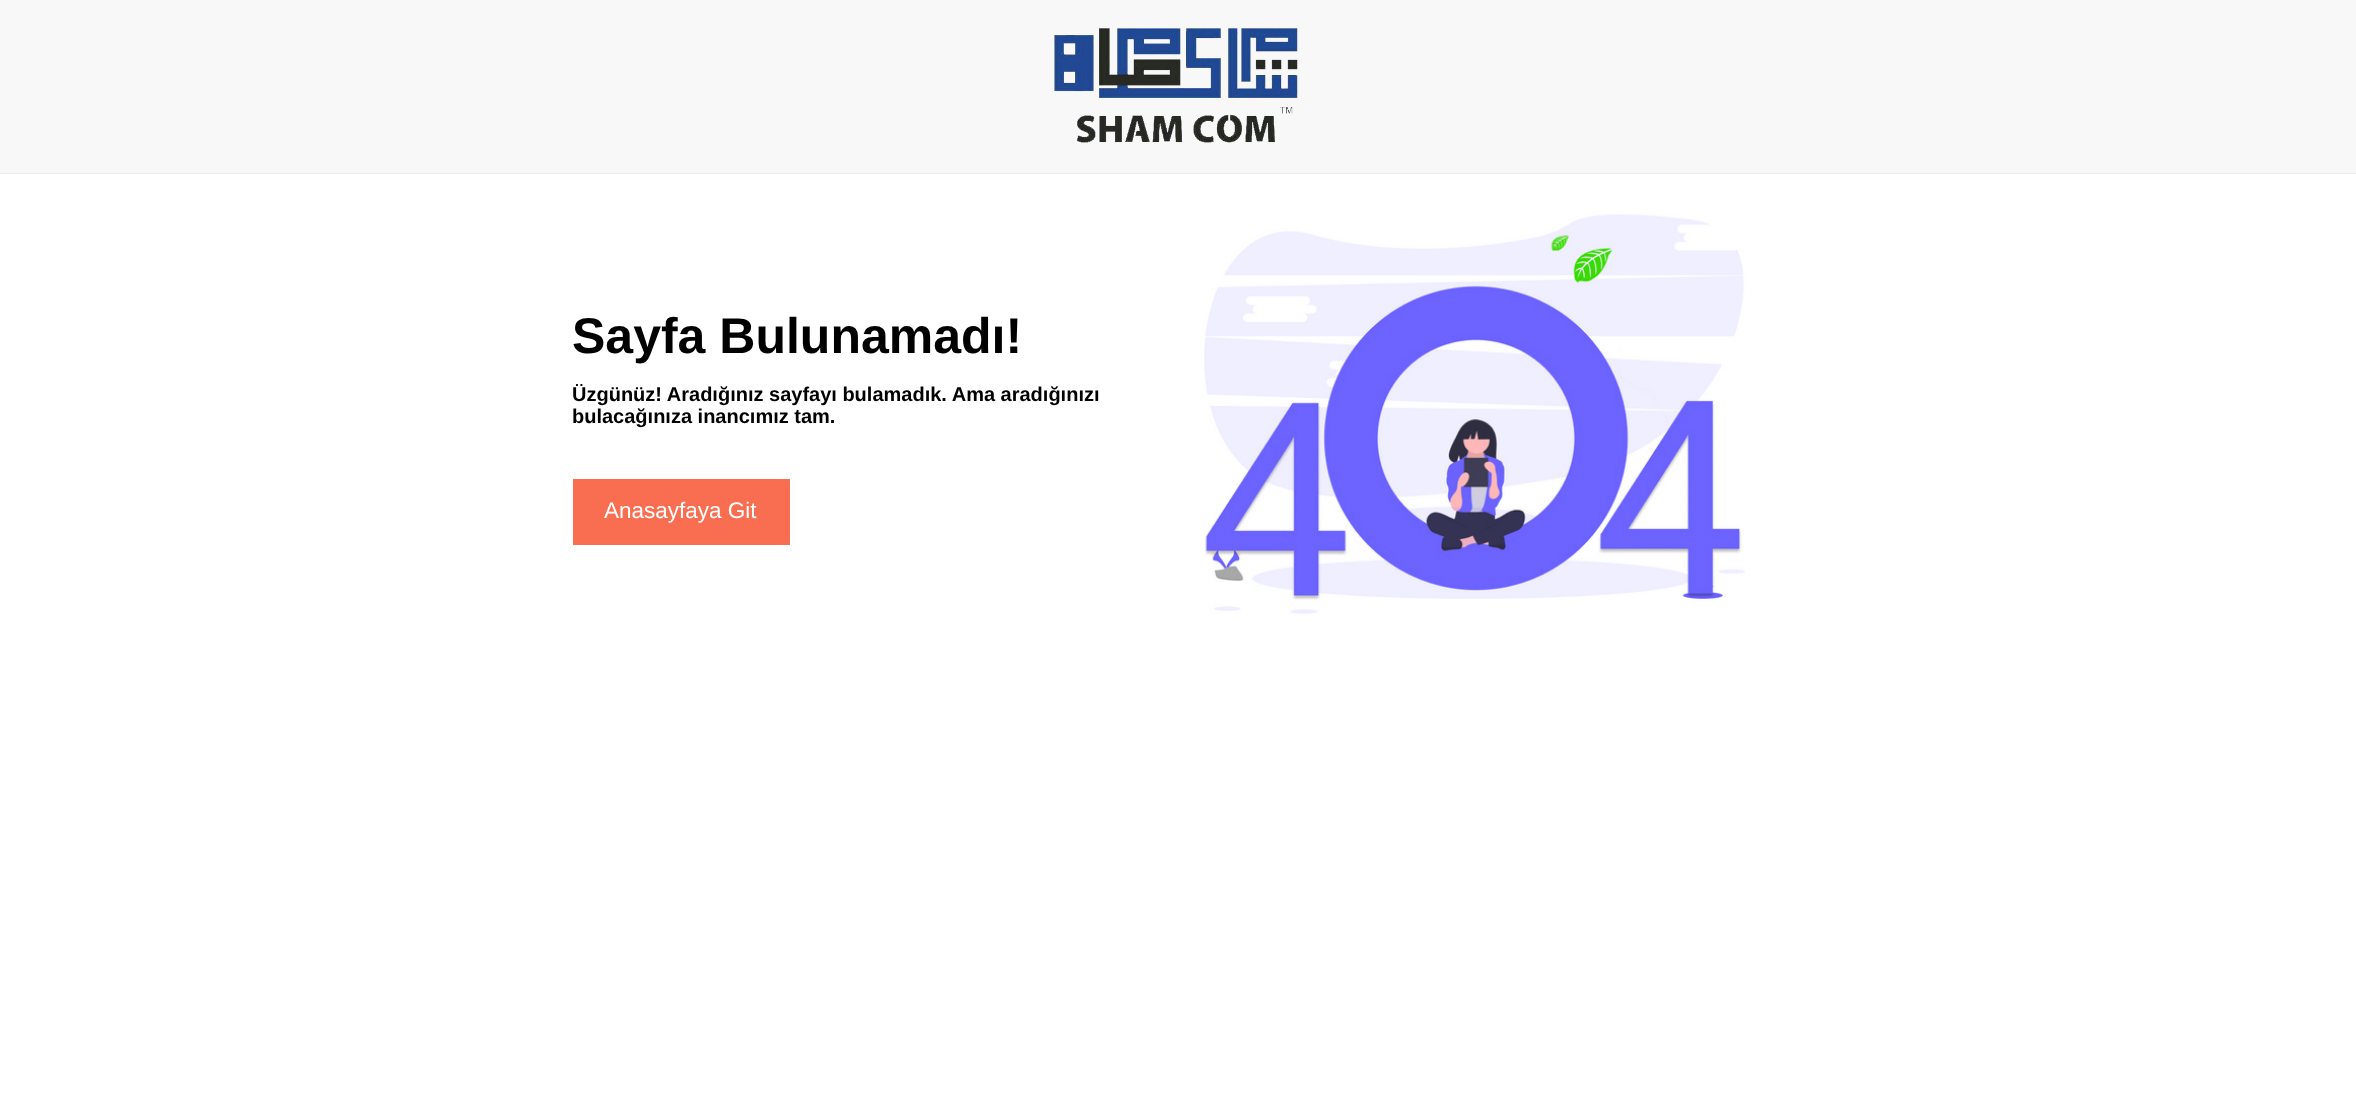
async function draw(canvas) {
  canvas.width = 2356;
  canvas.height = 1100;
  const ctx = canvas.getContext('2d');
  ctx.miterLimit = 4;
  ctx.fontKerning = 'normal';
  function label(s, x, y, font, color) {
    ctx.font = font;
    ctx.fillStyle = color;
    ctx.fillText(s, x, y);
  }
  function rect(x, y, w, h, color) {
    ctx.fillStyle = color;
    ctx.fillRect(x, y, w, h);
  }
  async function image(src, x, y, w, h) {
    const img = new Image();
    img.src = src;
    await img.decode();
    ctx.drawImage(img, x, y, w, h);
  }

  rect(0, 0, 2356, 1100, '#fff');
  rect(0, 0, 2356, 173, '#f8f8f8');
  rect(0, 173, 2356, 1, '#ebebeb');
  await image('assets/img1.png', 1054, 28, 244, 115);
  label('Sayfa Bulunamadı!', 572, 353, 'bold 50px Liberation Sans', '#000');
  label('Üzgünüz! Aradığınız sayfayı bulamadık. Ama aradığınızı', 572, 401, 'bold 20px Liberation Sans', '#000');
  label('bulacağınıza inancımız tam.', 572, 423, 'bold 20px Liberation Sans', '#000');
  rect(573, 479, 217, 66, '#f96e51');
  label('Anasayfaya Git', 604, 518, '22.5px Liberation Sans', '#fff');
  await image('assets/img2.png', 1204, 214, 541, 400);
}

draw(document.querySelector('canvas'));
